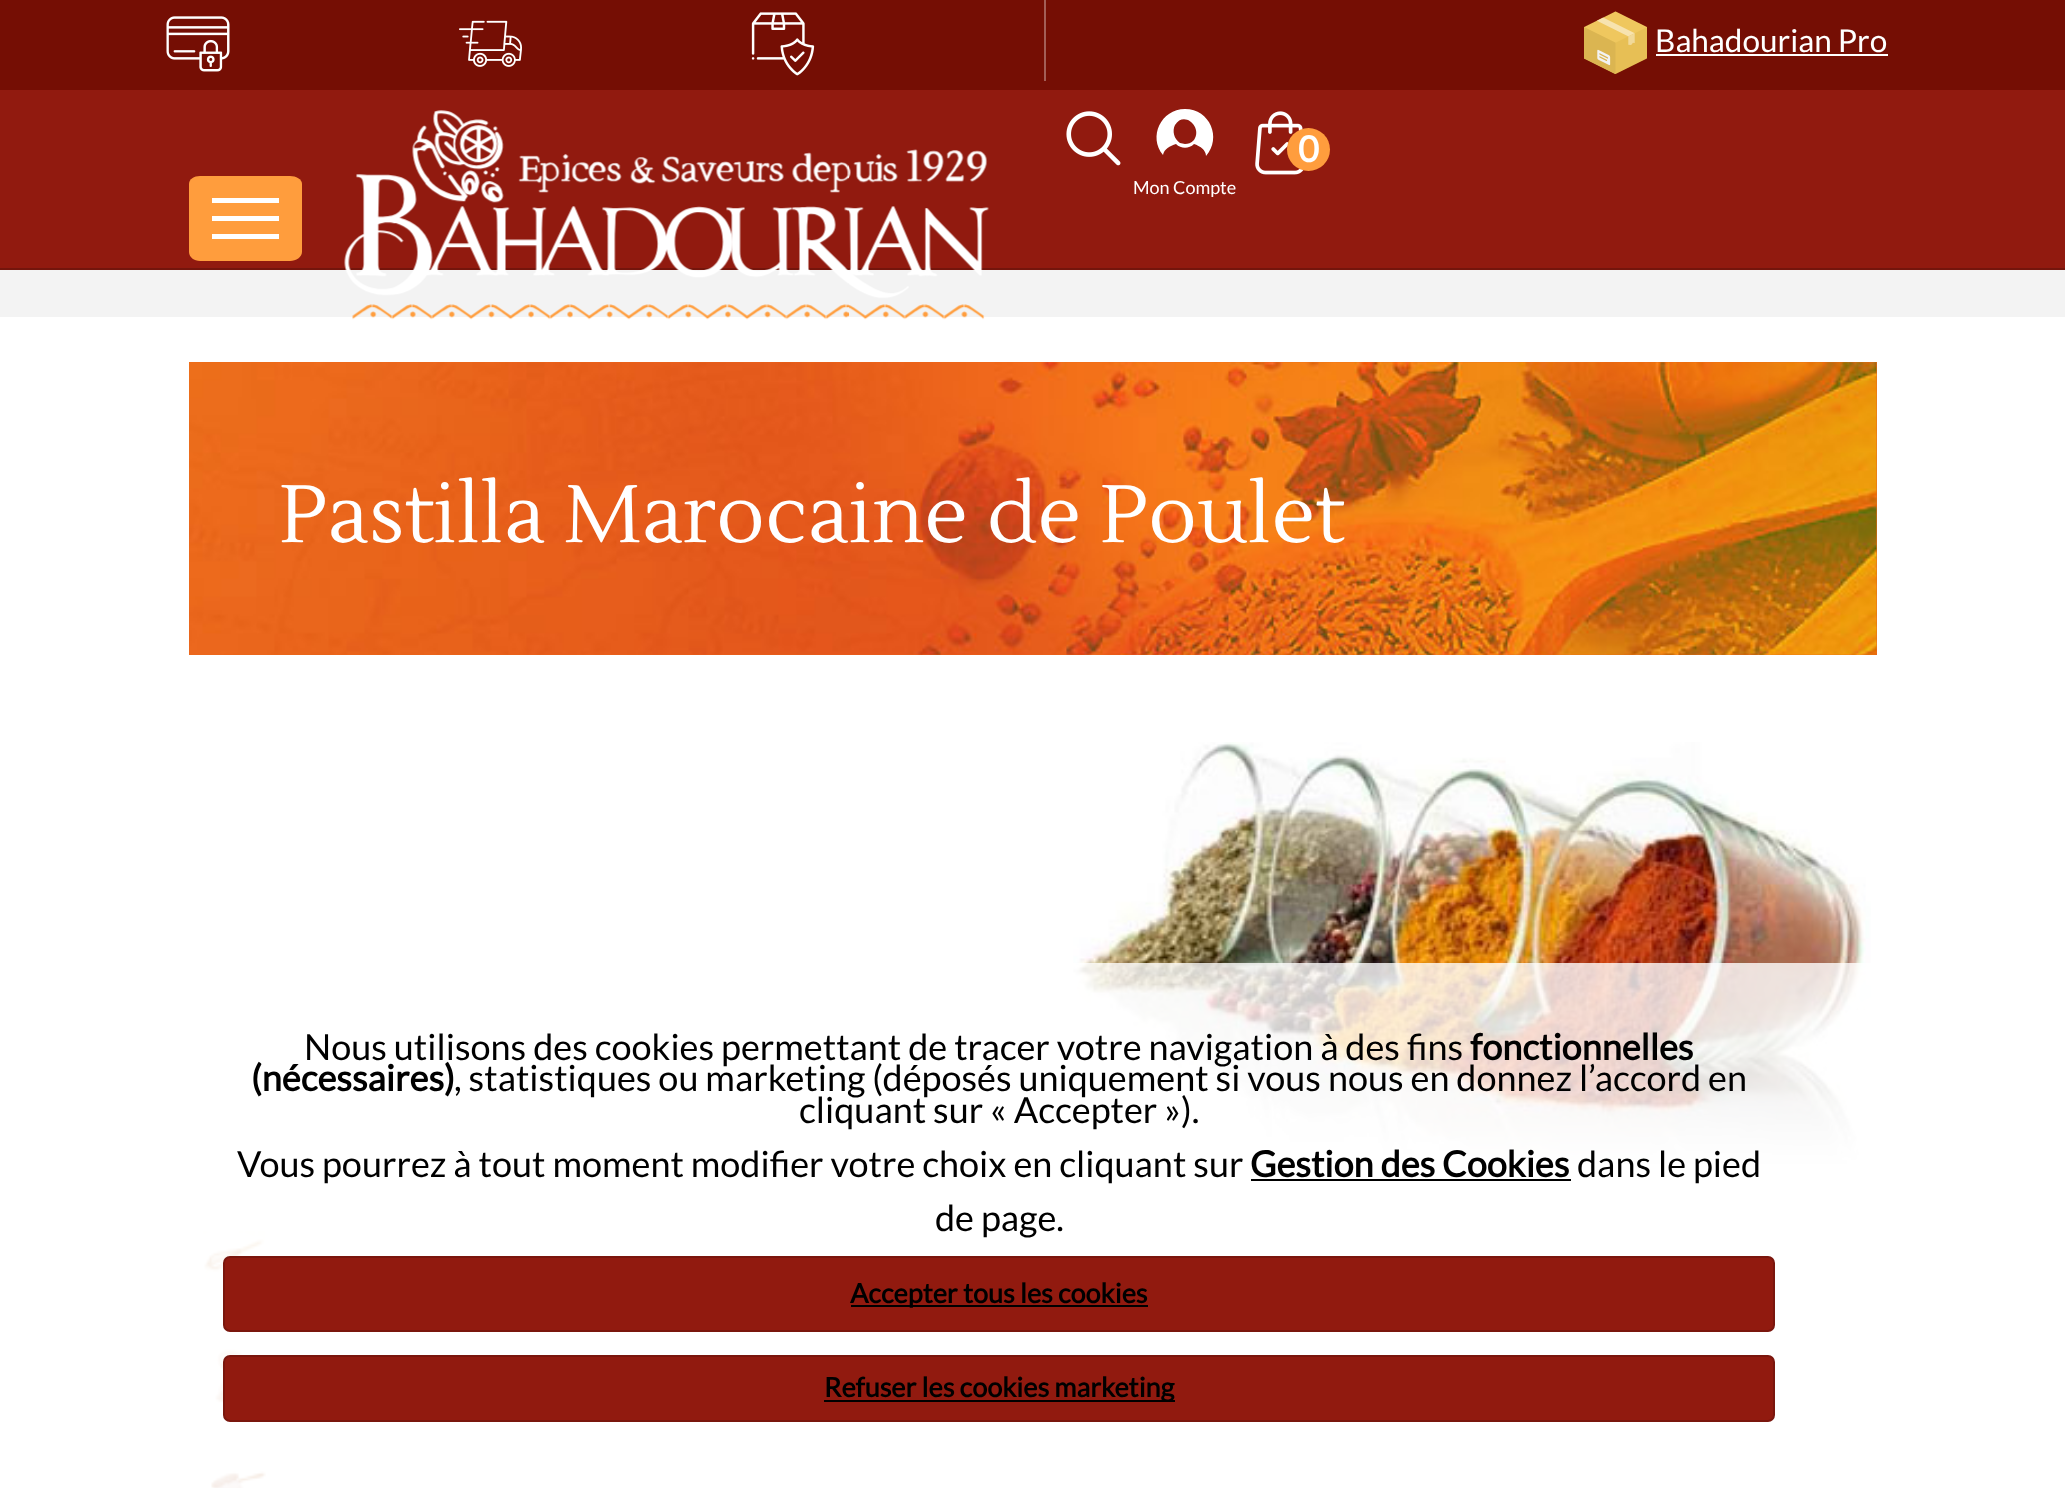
async function draw(canvas) {
  canvas.width = 2065;
  canvas.height = 1488;
  const ctx = canvas.getContext('2d');
  ctx.miterLimit = 4;
  ctx.fontKerning = 'normal';
  function label(s, x, y, font, color) {
    ctx.font = font;
    ctx.fillStyle = color;
    ctx.fillText(s, x, y);
  }
  function rect(x, y, w, h, color) {
    ctx.fillStyle = color;
    ctx.fillRect(x, y, w, h);
  }
  async function image(src, x, y, w, h) {
    const img = new Image();
    img.src = src;
    await img.decode();
    ctx.drawImage(img, x, y, w, h);
  }
  let path;

  rect(0, 0, 2065, 1488, '#fff');
  rect(0, 0, 2065, 90, '#750e04');
  await image('assets/img1.png', 166, 16, 64, 56);
  await image('assets/img2.png', 459, 20, 63, 47);
  await image('assets/img3.png', 751, 12, 64, 64);
  rect(1044, 0, 2, 81, '#a35e57');
  await image('assets/img4.png', 1584, 11, 63, 63);
  label('Bahadourian Pro', 1655, 52, '31.5px Lato', '#fff');
  rect(1656, 54, 232, 2, '#fff');
  rect(0, 90, 2065, 178, '#911a0f');
  rect(0, 268, 2065, 2, '#74150c');
  ctx.fillStyle = '#ff9d3d';
  path = new Path2D('M200 176H290C296 176 302 179 302 184V252C302 257 296 261 290 261H200C194 261 189 257 189 252V184C189 179 194 176 200 176Z');
  ctx.fill(path);
  rect(212, 198, 67, 5, '#fff');
  rect(212, 216, 67, 5, '#fff');
  rect(212, 234, 67, 5, '#fff');
  rect(0, 270, 2065, 47, '#f3f3f3');
  await image('assets/img5.png', 344, 110, 645, 210);
  await image('assets/img6.png', 1066, 111, 55, 55);
  await image('assets/img7.png', 1255, 111, 49, 64);
  ctx.fillStyle = '#ff9d3d';
  ctx.beginPath();
  ctx.arc(1308.5, 149.5, 21.5, 0, 2 * Math.PI);
  ctx.fill();
  label('0', 1298, 162, 'bold 36px Lato', '#fff');
  path = new Path2D('M1185 109C1161 109 1148 137 1163 155C1164 149 1170 146 1176 144C1181 149 1189 149 1194 144C1200 146 1206 150 1206 156C1222 138 1210 109 1185 109ZM1185 144L1180 143C1174 139 1172 131 1175 125C1184 110 1203 127 1194 140C1191 143 1188 144 1185 144Z');
  ctx.fill(path);
  label('Mon Compte', 1133, 194, '18px Lato', '#fff');
  rect(189, 362, 1688, 293, '#ec691b');
  await image('assets/img8.png', 189, 362, 1688, 293);
  label('Pastilla Marocaine de Poulet', 279, 542, '81px Lustria', '#fff');
  await image('assets/img9.png', 1073, 742, 798, 422);
  await image('assets/img10.png', 203, 1231, 62, 42);
  await image('assets/img11.png', 215, 1349, 29, 55);
  await image('assets/img12.png', 211, 1471, 55, 17);
  rect(203, 963, 1668, 525, '#ffffffcc');
  label('Nous utilisons des cookies permettant de tracer votre navigation à des fins', 304, 1060, '36px Lato', '#000');
  label('fonctionnelles', 1470, 1060, 'bold 36px Lato', '#000');
  label('(nécessaires)', 251, 1091, 'bold 36px Lato', '#000');
  label(', statistiques ou marketing (déposés uniquement si vous nous en donnez l’accord en', 454, 1091, '36px Lato', '#000');
  label('cliquant sur « Accepter »).', 799, 1123, '36px Lato', '#000');
  label('Vous pourrez à tout moment modifier votre choix en cliquant sur', 237, 1177, '36px Lato', '#000');
  label('Gestion des Cookies', 1250, 1177, 'bold 36px Lato', '#000');
  rect(1251, 1179, 320, 2, '#000');
  label('dans le pied', 1577, 1177, '36px Lato', '#000');
  label('de page.', 935, 1231, '36px Lato', '#000');
  ctx.fillStyle = '#911a0f';
  ctx.beginPath();
  ctx.roundRect(224, 1257, 1550, 74, 6);
  ctx.fill();
  ctx.strokeStyle = '#7a160d';
  ctx.lineWidth = 2;
  ctx.stroke();
  rect(851, 1305, 297, 2, '#000');
  label('Accepter tous les cookies', 850, 1303, 'bold 27px Lato', '#000');
  ctx.fillStyle = '#911a0f';
  ctx.beginPath();
  ctx.roundRect(224, 1356, 1550, 65, 6);
  ctx.fill();
  ctx.stroke();
  rect(824, 1400, 351, 2, '#000');
  label('Refuser les cookies marketing', 824, 1397, 'bold 27px Lato', '#000');
}

draw(document.querySelector('canvas'));
